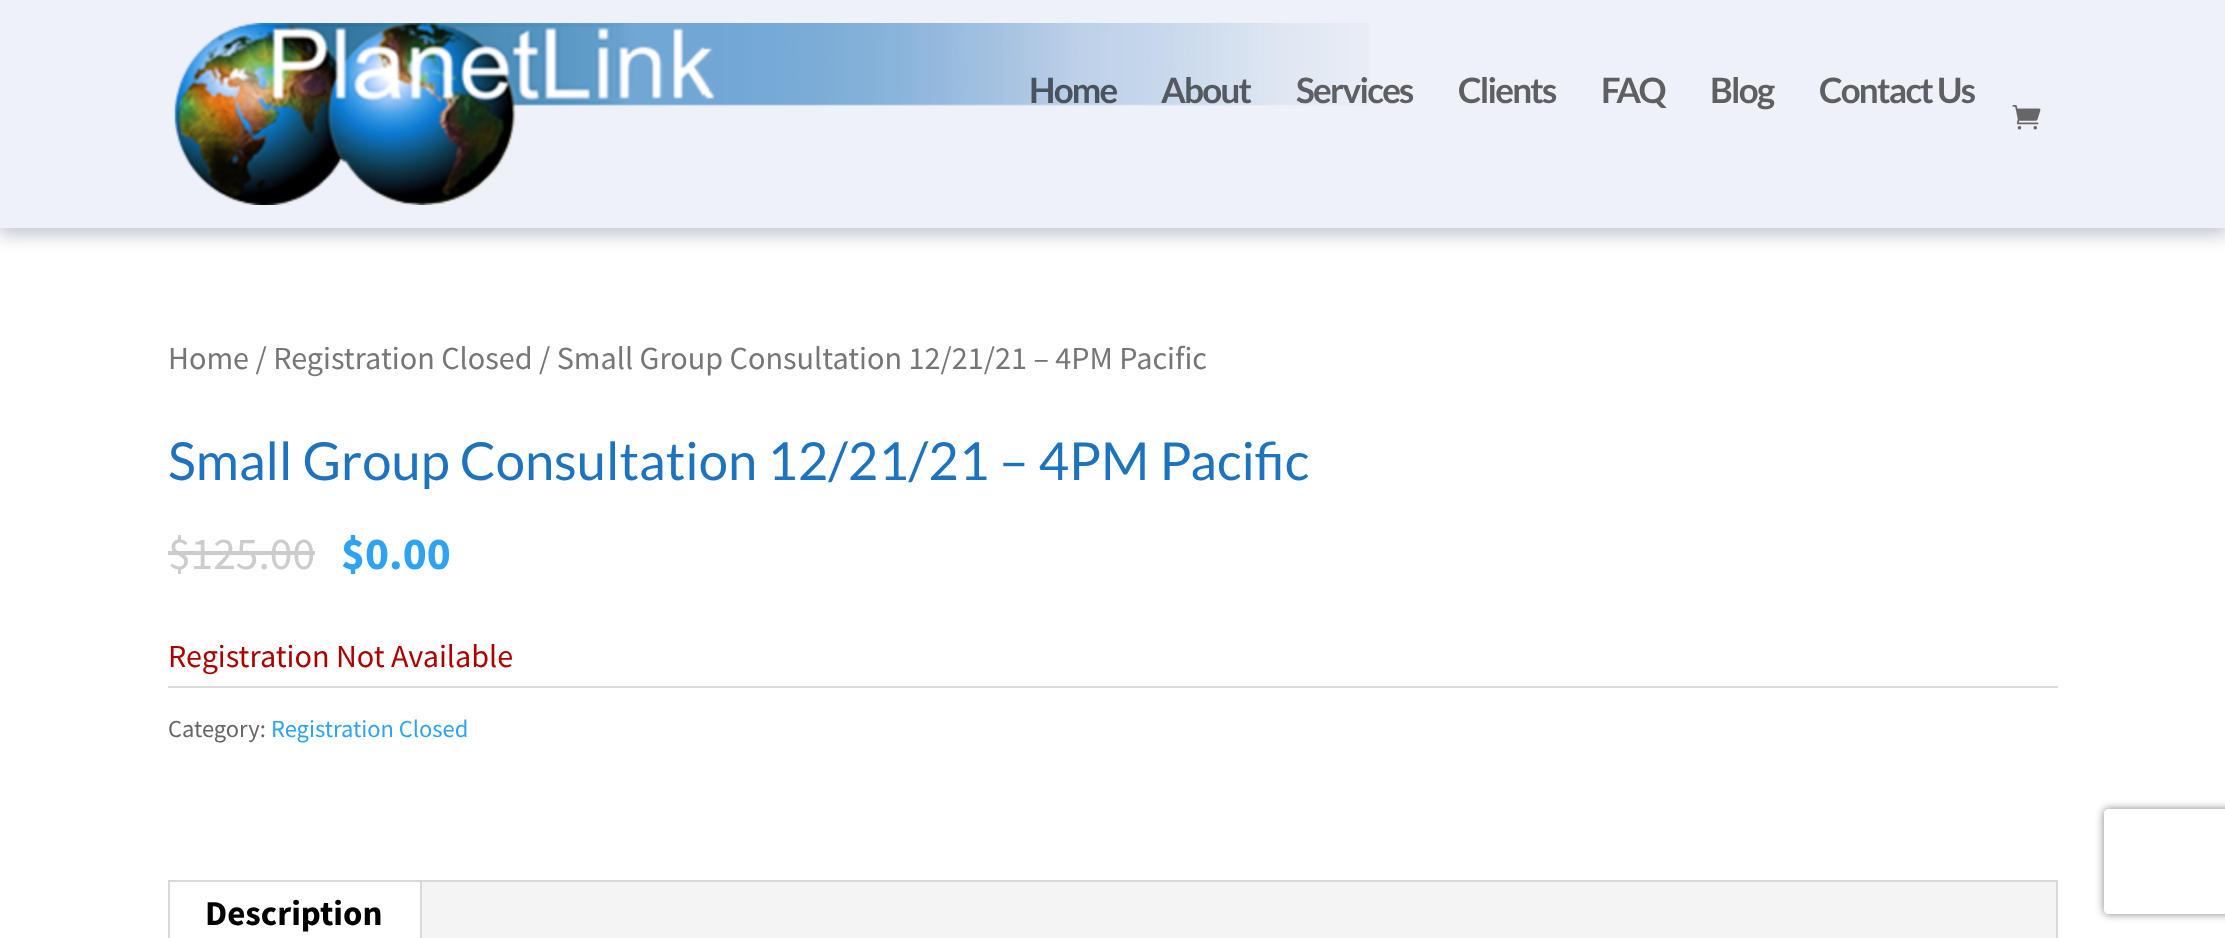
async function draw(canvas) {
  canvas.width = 2225;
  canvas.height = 938;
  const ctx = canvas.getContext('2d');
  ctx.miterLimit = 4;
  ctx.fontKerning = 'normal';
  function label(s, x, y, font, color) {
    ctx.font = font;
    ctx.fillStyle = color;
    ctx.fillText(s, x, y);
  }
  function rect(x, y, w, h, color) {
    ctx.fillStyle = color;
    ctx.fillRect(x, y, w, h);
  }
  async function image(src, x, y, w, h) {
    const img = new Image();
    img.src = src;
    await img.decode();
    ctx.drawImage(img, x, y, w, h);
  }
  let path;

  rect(0, 0, 2225, 938, '#fff');
  ctx.save();
  path = new Path2D('M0 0H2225V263H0ZM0 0H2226V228H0Z');
  ctx.clip(path, 'evenodd');
  ctx.fillStyle = '#2e42624d';
  ctx.filter = 'blur(9px)';
  ctx.beginPath();
  ctx.rect(-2, 4, 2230, 231);
  ctx.fill();
  ctx.filter = 'none';
  ctx.restore();
  rect(0, 0, 2225, 228, '#e8edf5c2');
  await image('assets/img1.png', 174, 23, 1196, 182);
  ctx.letterSpacing = '-1.75px';
  label('Home', 1029, 103, 'bold 35px Lato', '#4a535d');
  label('About', 1161, 103, 'bold 35px Lato', '#53595f');
  label('Services', 1296, 103, 'bold 35px Lato', '#5d5f62');
  label('Clients', 1458, 103, 'bold 35px Lato', '#5d5f62');
  label('FAQ', 1601, 103, 'bold 35px Lato', '#5d5f62');
  label('Blog', 1710, 103, 'bold 35px Lato', '#5d5f62');
  label('Contact Us', 1819, 103, 'bold 35px Lato', '#5d5f62');
  await image('assets/img2.png', 2012, 105, 29, 25);
  ctx.letterSpacing = '0px';
  label('Home / Registration Closed / Small Group Consultation 12/21/21 – 4PM Pacific', 168, 369, '32.2px Source Sans Pro', '#767676');
  label('Small Group Consultation 12/21/21 – 4PM Pacific', 168, 480, '52.5px Lato', '#1e73be');
  label('$125.00', 168, 569, '45.5px Source Sans Pro', '#ccc');
  rect(168, 551, 147, 4, '#ccc');
  label('$0.00', 341, 569, 'bold 45.5px Source Sans Pro', '#2ea3f2');
  label('Registration Not Available', 168, 667, '32.2px Source Sans Pro', '#a00');
  rect(168, 686, 1890, 2, '#dadada');
  label('Category:', 168, 737, '24.5px Source Sans Pro', '#666');
  label('Registration Closed', 271, 737, '24.5px Source Sans Pro', '#2ea3f2');
  ctx.strokeStyle = '#d9d9d9';
  ctx.lineWidth = 2;
  ctx.strokeRect(169, 881, 1888, 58);
  rect(422, 882, 1634, 56, '#f4f4f4');
  rect(420, 882, 2, 56, '#d9d9d9');
  label('Description', 205, 925, 'bold 35px Source Sans Pro', '#000');
  ctx.save();
  path = new Path2D('M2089 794H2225V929H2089ZM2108 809H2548C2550 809 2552 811 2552 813V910C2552 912 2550 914 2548 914H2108C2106 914 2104 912 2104 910V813C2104 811 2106 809 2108 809Z');
  ctx.clip(path, 'evenodd');
  ctx.fillStyle = '#808080';
  ctx.filter = 'blur(4.5px)';
  ctx.beginPath();
  ctx.roundRect(2104, 809, 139, 105, 4);
  ctx.fill();
  ctx.filter = 'none';
  ctx.restore();
}

draw(document.querySelector('canvas'));
